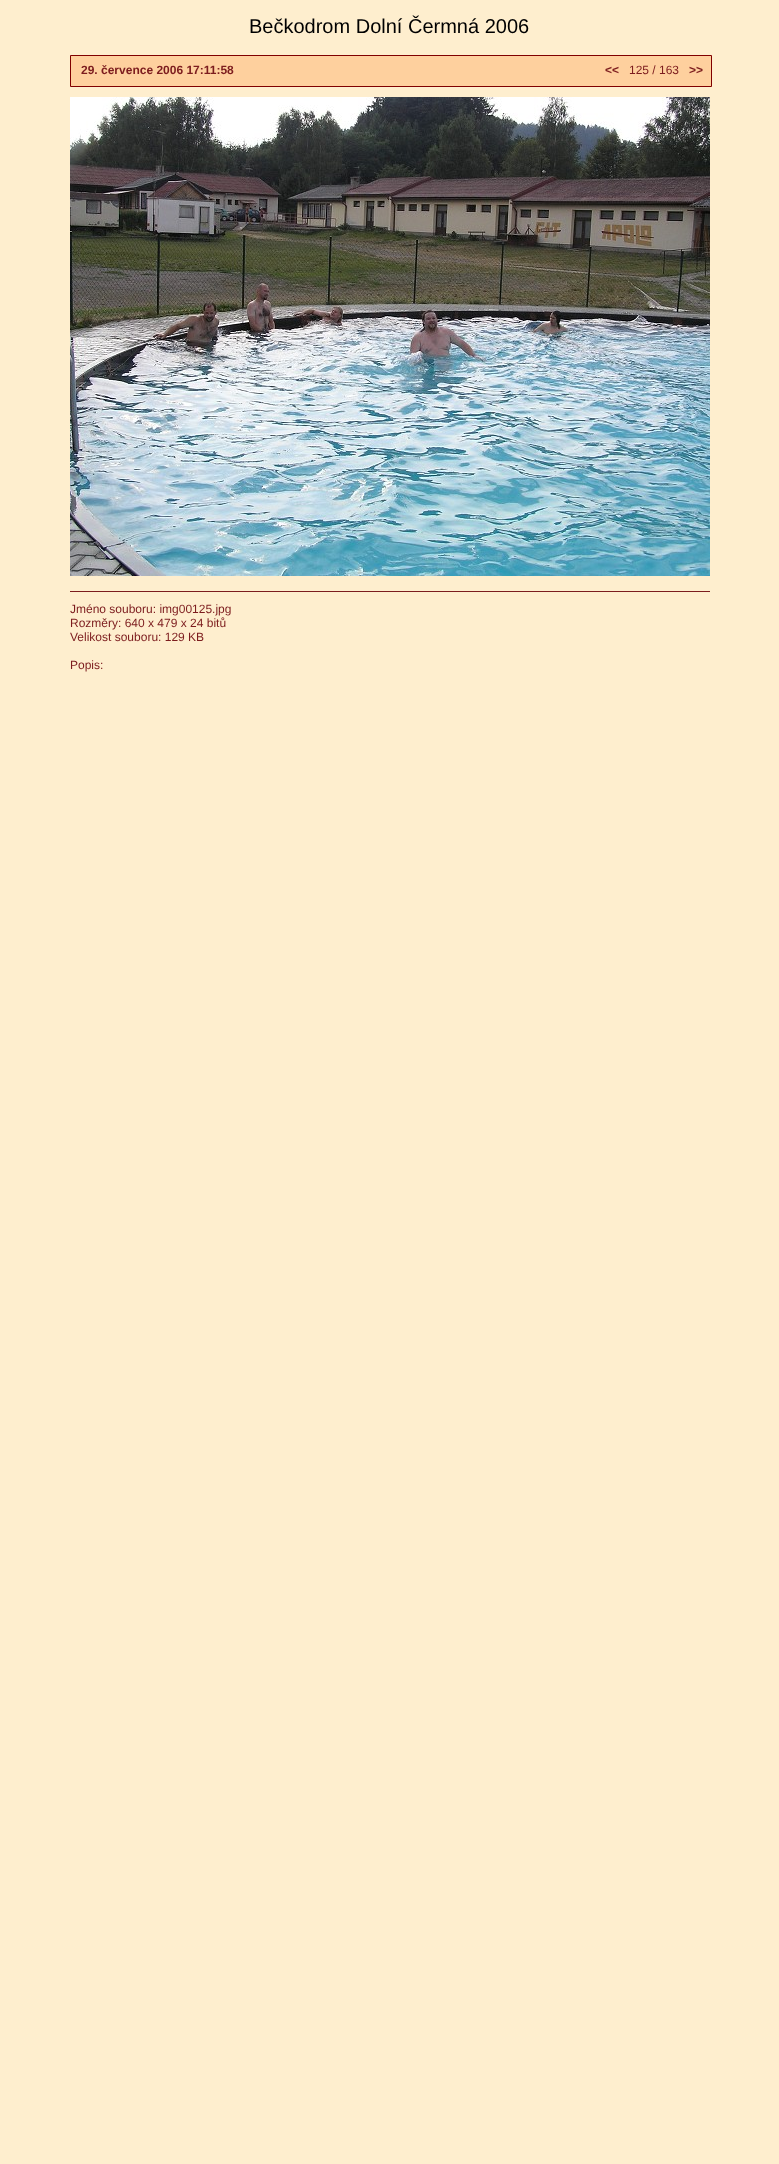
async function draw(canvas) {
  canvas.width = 779;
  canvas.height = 2164;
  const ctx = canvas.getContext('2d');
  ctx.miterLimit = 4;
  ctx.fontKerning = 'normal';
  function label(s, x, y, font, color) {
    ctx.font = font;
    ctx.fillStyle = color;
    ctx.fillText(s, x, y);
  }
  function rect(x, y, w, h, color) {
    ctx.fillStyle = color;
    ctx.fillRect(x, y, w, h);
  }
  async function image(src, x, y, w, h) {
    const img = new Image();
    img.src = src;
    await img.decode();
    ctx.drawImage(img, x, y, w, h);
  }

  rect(0, 0, 779, 2164, '#feeece');
  label('Bečkodrom Dolní Čermná 2006', 249, 33, '20px Liberation Sans', '#000');
  ctx.fillStyle = '#fed09e';
  ctx.beginPath();
  ctx.rect(70.5, 55.5, 641, 31);
  ctx.fill();
  ctx.strokeStyle = '#800000';
  ctx.stroke();
  label('29. července 2006 17:11:58', 81, 74, 'bold 12px Liberation Sans', '#7c1c1e');
  label('<<', 605, 74, 'bold 12px Liberation Sans', '#7c1c1e');
  label('125 / 163', 629, 74, '12px Liberation Sans', '#7c1c1e');
  label('>>', 689, 74, 'bold 12px Liberation Sans', '#7c1c1e');
  await image('assets/img1.png', 70, 97, 640, 479);
  rect(70, 591, 640, 1, '#7c1c1e');
  label('Jméno souboru: img00125.jpg', 70, 613, '12px Liberation Sans', '#7c1c1e');
  label('Rozměry: 640 x 479 x 24 bitů', 70, 627, '12px Liberation Sans', '#7c1c1e');
  label('Velikost souboru: 129 KB', 70, 641, '12px Liberation Sans', '#7c1c1e');
  label('Popis:', 70, 669, '12px Liberation Sans', '#7c1c1e');
}

draw(document.querySelector('canvas'));
